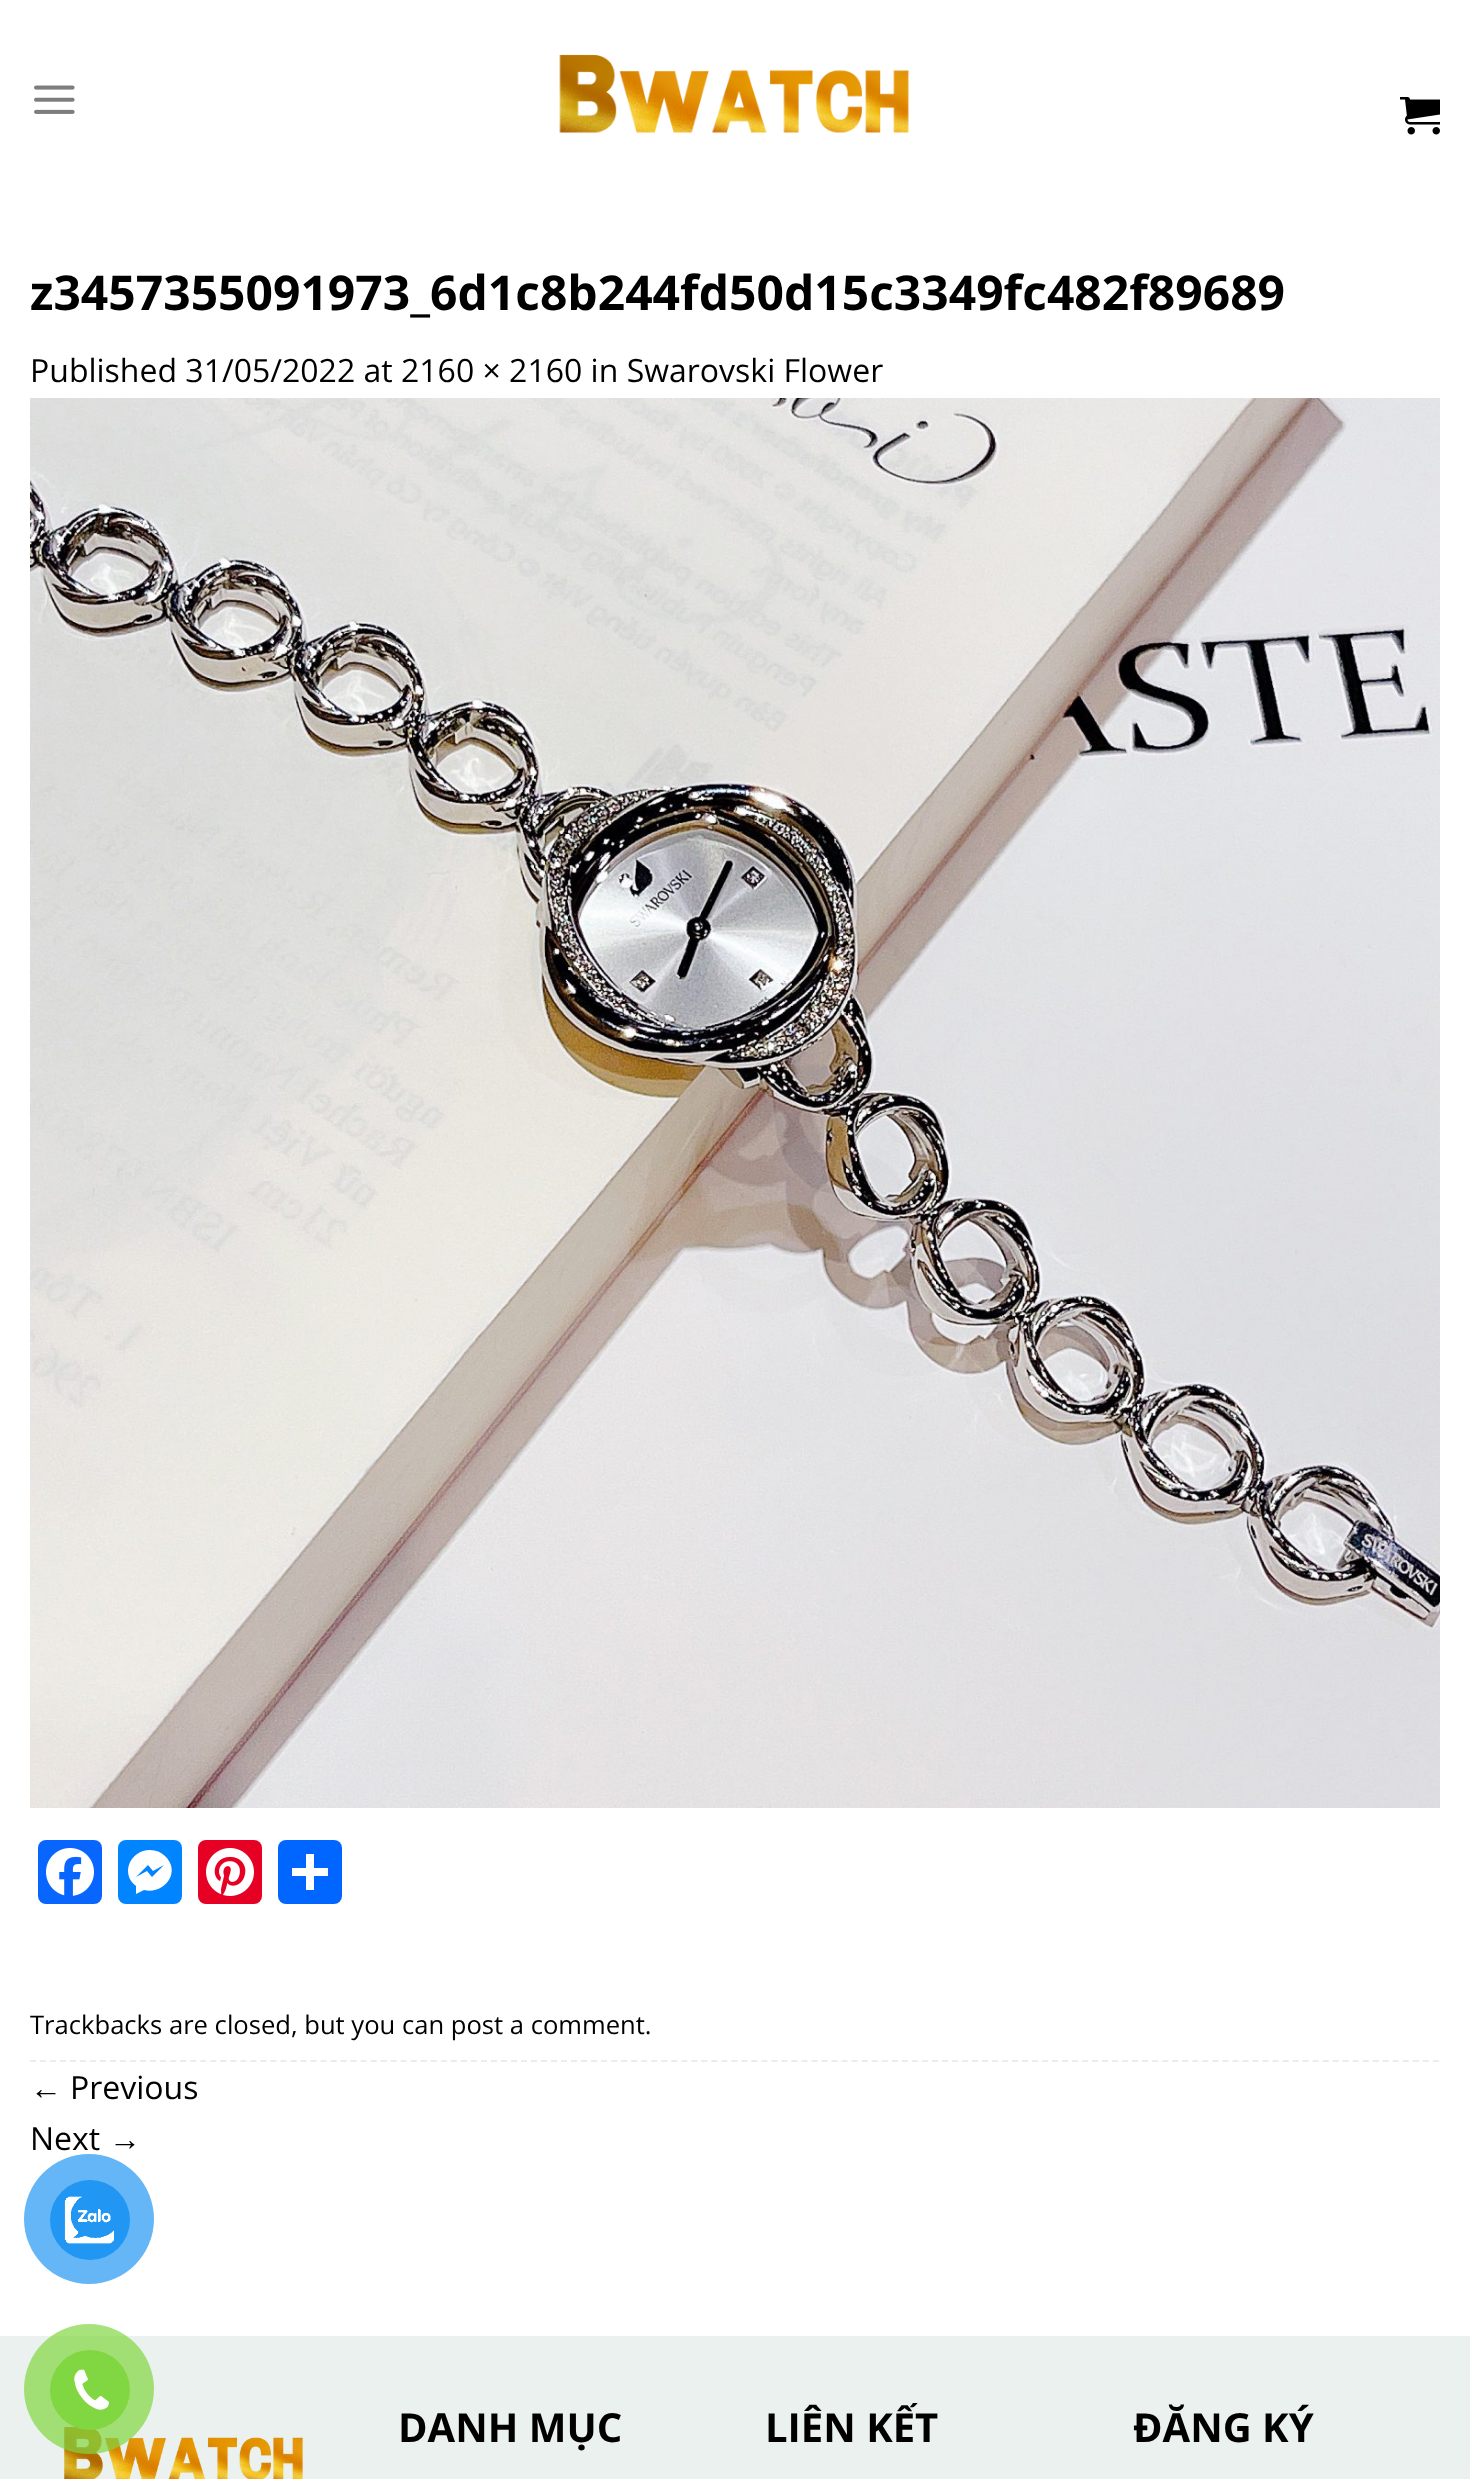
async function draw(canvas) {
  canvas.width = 1470;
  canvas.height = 2479;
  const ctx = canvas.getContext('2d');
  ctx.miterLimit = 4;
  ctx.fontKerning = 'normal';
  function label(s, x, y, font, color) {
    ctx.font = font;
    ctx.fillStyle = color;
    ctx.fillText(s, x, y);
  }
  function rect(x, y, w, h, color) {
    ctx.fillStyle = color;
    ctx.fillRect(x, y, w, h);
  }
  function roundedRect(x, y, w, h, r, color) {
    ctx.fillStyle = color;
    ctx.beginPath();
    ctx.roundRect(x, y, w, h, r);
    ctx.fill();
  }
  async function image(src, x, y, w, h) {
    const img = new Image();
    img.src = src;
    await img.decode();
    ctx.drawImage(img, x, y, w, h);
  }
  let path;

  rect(0, 0, 1470, 2479, '#fff');
  await image('assets/img1.png', 34, 85, 41, 29);
  await image('assets/img2.png', 559, 54, 350, 80);
  await image('assets/img3.png', 1400, 97, 40, 38);
  label('z3457355091973_6d1c8b244fd50d15c3349fc482f89689', 30, 310, 'bold 48px Open Sans', '#000');
  label('Published 31/05/2022 at 2160 × 2160 in Swarovski Flower', 30, 382, '32px Open Sans', '#000');
  await image('assets/img4.png', 30, 398, 1410, 1410);
  roundedRect(38, 1840, 64, 64, 8, '#0866ff');
  await image('assets/img5.png', 46, 1848, 48, 48);
  roundedRect(118, 1840, 64, 64, 8, '#0084ff');
  ctx.fillStyle = '#fff';
  path = new Path2D('M150 1850C130 1850 120 1874 136 1886V1894L144 1890C164 1895 182 1872 165 1856C161 1852 156 1850 150 1850M152 1877L147 1871L136 1877L148 1865L153 1871L164 1865Z');
  ctx.fill(path);
  roundedRect(198, 1840, 64, 64, 8, '#e60023');
  await image('assets/img6.png', 206, 1848, 48, 48);
  roundedRect(278, 1840, 64, 64, 8, '#0166ff');
  rect(306, 1854, 8, 36, '#fff');
  rect(292, 1868, 36, 8, '#fff');
  path = new Path2D('M30 2061H1440');
  ctx.strokeStyle = '#ececec';
  ctx.lineWidth = 2;
  ctx.setLineDash([6, 4.02]);
  ctx.stroke(path);
  label('Trackbacks are closed, but you can post a comment.', 30, 2034, '25.6px Open Sans', '#000');
  label('←', 30, 2099, '32px Liberation Sans', '#000');
  label('Previous', 70, 2099, '32px Open Sans', '#000');
  label('Next', 30, 2150, '32px Open Sans', '#000');
  label('→', 109, 2150, '32px Liberation Sans', '#000');
  rect(0, 2336, 1470, 143, '#eaf1ef');
  await image('assets/img7.png', 64, 2426, 239, 53);
  label('DANH MỤC', 398, 2442, 'bold 40px Open Sans', '#000');
  label('LIÊN KẾT', 765, 2442, 'bold 40px Open Sans', '#000');
  label('ĐĂNG KÝ', 1133, 2442, 'bold 40px Open Sans', '#000');
  ctx.fillStyle = '#64b6f7';
  ctx.beginPath();
  ctx.arc(89, 2219, 65, 0, 2 * Math.PI);
  ctx.fill();
  ctx.fillStyle = '#2196f3';
  ctx.beginPath();
  ctx.arc(90, 2220, 40, 0, 2 * Math.PI);
  ctx.fill();
  await image('assets/img8.png', 64, 2196, 50, 48);
  ctx.fillStyle = '#81d742b3';
  ctx.beginPath();
  ctx.arc(89, 2389, 65, 0, 2 * Math.PI);
  ctx.fill();
  ctx.fillStyle = '#81d742';
  ctx.beginPath();
  ctx.arc(90, 2390, 40, 0, 2 * Math.PI);
  ctx.fill();
  await image('assets/img9.png', 74, 2369, 35, 41);
}

draw(document.querySelector('canvas'));
